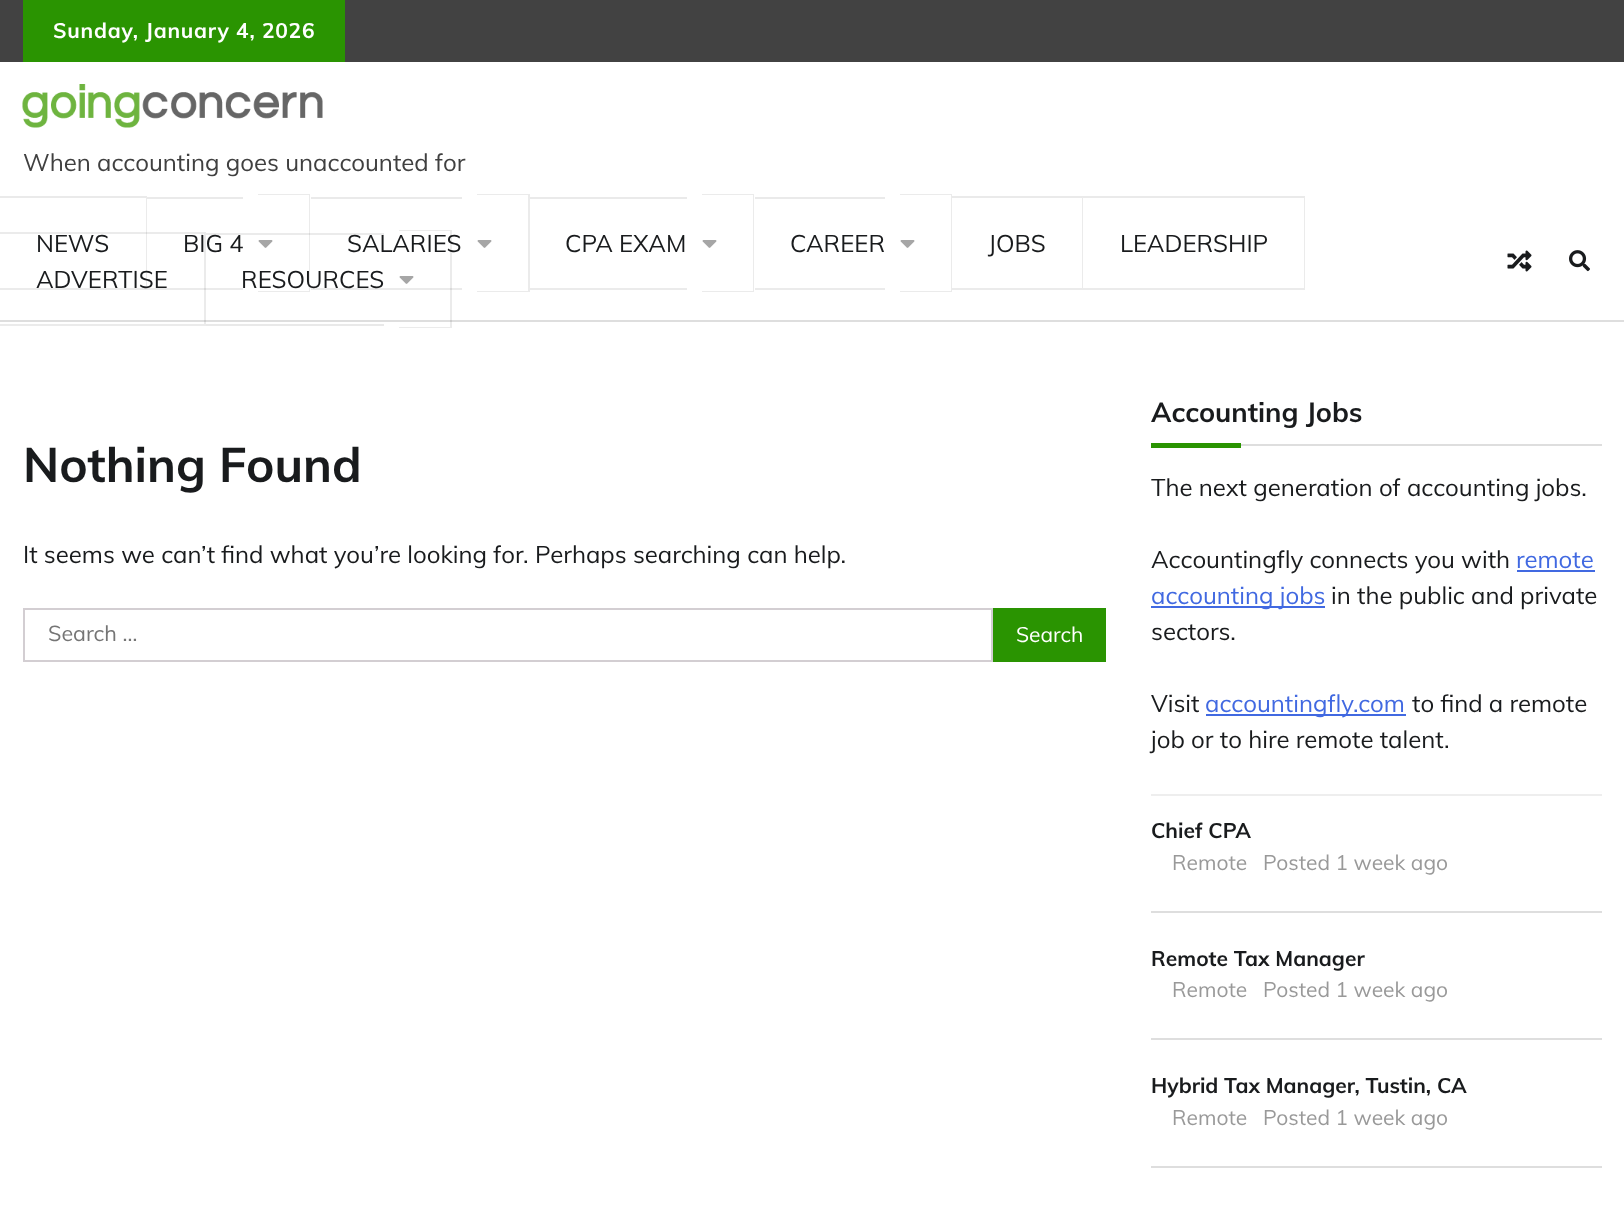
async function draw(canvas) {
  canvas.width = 1624;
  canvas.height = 1213;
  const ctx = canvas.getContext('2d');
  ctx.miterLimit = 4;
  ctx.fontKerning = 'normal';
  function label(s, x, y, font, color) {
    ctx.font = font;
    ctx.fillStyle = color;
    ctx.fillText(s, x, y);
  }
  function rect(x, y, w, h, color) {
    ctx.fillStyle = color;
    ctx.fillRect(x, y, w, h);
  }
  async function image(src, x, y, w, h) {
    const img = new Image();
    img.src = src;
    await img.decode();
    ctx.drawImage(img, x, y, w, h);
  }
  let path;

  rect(0, 0, 1624, 1213, '#fff');
  rect(0, 0, 1624, 62, '#424242');
  rect(23, 0, 322, 62, '#2a9401');
  ctx.letterSpacing = '0.75px';
  label('Sunday, January 4, 2026', 53, 38, 'bold 21px Muli', '#fff');
  await image('assets/img1.png', 22, 84, 301, 44);
  ctx.letterSpacing = '0px';
  label('When accounting goes unaccounted for', 23, 171, '24px Muli', '#404040');
  rect(0, 320, 1624, 2, '#20212426');
  label('NEWS', 36, 252, '24px Muli', '#191b1d');
  ctx.fillStyle = '#eaeaea';
  path = new Path2D('M0 196H147L146 198H0Z');
  ctx.fill(path);
  ctx.fillStyle = '#00000014';
  path = new Path2D('M147 196V290L146 288V198Z');
  ctx.fill(path);
  path = new Path2D('M147 290H0V288H146Z');
  ctx.fill(path);
  rect(147, 197, 96, 2, '#eaeaea');
  rect(147, 288, 96, 2, '#ebebeb');
  path = new Path2D('M258 194H310L309 195H258Z');
  ctx.fill(path);
  ctx.fillStyle = '#00000014';
  path = new Path2D('M310 194V292L309 291V195Z');
  ctx.fill(path);
  path = new Path2D('M310 292H258V291H309Z');
  ctx.fill(path);
  label('BIG 4', 183, 252, '24px Muli', '#191b1d');
  await image('assets/img2.png', 258, 240, 15, 8);
  rect(311, 197, 151, 2, '#eaeaea');
  rect(311, 288, 151, 2, '#ebebeb');
  path = new Path2D('M477 194H530L528 195H477Z');
  ctx.fill(path);
  ctx.fillStyle = '#00000014';
  path = new Path2D('M530 194V292L528 291V195Z');
  ctx.fill(path);
  path = new Path2D('M530 292H477V291H528Z');
  ctx.fill(path);
  label('SALARIES', 347, 252, '24px Muli', '#191b1d');
  await image('assets/img2.png', 477, 240, 15, 8);
  rect(530, 197, 157, 2, '#eaeaea');
  rect(530, 288, 157, 2, '#ebebeb');
  path = new Path2D('M702 194H754L753 195H702Z');
  ctx.fill(path);
  ctx.fillStyle = '#00000014';
  path = new Path2D('M754 194V292L753 291V195Z');
  ctx.fill(path);
  path = new Path2D('M754 292H702V291H753Z');
  ctx.fill(path);
  label('CPA EXAM', 565, 252, '24px Muli', '#191b1d');
  await image('assets/img2.png', 702, 240, 15, 8);
  rect(755, 197, 130, 2, '#eaeaea');
  rect(755, 288, 130, 2, '#ebebeb');
  path = new Path2D('M900 194H952L951 195H900Z');
  ctx.fill(path);
  ctx.fillStyle = '#00000014';
  path = new Path2D('M952 194V292L951 291V195Z');
  ctx.fill(path);
  path = new Path2D('M952 292H900V291H951Z');
  ctx.fill(path);
  label('CAREER', 790, 252, '24px Muli', '#191b1d');
  await image('assets/img2.png', 900, 240, 15, 8);
  label('JOBS', 988, 252, '24px Muli', '#191b1d');
  ctx.fillStyle = '#eaeaea';
  path = new Path2D('M952 196H1083L1082 198H952Z');
  ctx.fill(path);
  ctx.fillStyle = '#00000014';
  path = new Path2D('M1083 196V290L1082 288V198Z');
  ctx.fill(path);
  path = new Path2D('M1083 290H952V288H1082Z');
  ctx.fill(path);
  label('LEADERSHIP', 1120, 252, '24px Muli', '#191b1d');
  ctx.fillStyle = '#eaeaea';
  path = new Path2D('M1083 196H1305L1304 198H1083Z');
  ctx.fill(path);
  ctx.fillStyle = '#00000014';
  path = new Path2D('M1305 196V290L1304 288V198Z');
  ctx.fill(path);
  path = new Path2D('M1305 290H1083V288H1304Z');
  ctx.fill(path);
  label('ADVERTISE', 36, 288, '24px Muli', '#191b1d');
  ctx.fillStyle = '#00000014';
  path = new Path2D('M0 232H206L204 234H0Z');
  ctx.fill(path);
  path = new Path2D('M206 232V326L204 324V234Z');
  ctx.fill(path);
  path = new Path2D('M206 326H0V324H204Z');
  ctx.fill(path);
  rect(206, 233, 178, 2, '#00000014');
  rect(206, 324, 178, 2, '#e9e9e9');
  ctx.fillStyle = '#ebebeb';
  path = new Path2D('M399 230H452L450 231H399Z');
  ctx.fill(path);
  ctx.fillStyle = '#00000014';
  path = new Path2D('M452 230V328L450 327V231Z');
  ctx.fill(path);
  path = new Path2D('M452 328H399V327H450Z');
  ctx.fill(path);
  label('RESOURCES', 241, 288, '24px Muli', '#191b1d');
  await image('assets/img2.png', 399, 276, 15, 8);
  await image('assets/img3.png', 1507, 250, 25, 22);
  await image('assets/img4.png', 1569, 250, 21, 22);
  label('Nothing Found', 23, 482, 'bold 48px Muli', '#191b1d');
  label('It seems we can’t find what you’re looking for. Perhaps searching can help.', 23, 563, '24px Muli', '#191b1d');
  ctx.strokeStyle = '#d3ced2';
  ctx.lineWidth = 2;
  ctx.strokeRect(24, 609, 968, 52);
  label('Search …', 48, 641, '21.5px Muli', '#757575');
  rect(993, 608, 113, 54, '#2a9401');
  label('Search', 1016, 642, '21px Muli', '#fff');
  rect(1241, 444, 361, 2, '#dedede');
  label('Accounting Jobs', 1151, 422, 'bold 27.25px Muli', '#191b1d');
  rect(1151, 443, 90, 5, '#2a9401');
  label('The next generation of accounting jobs.', 1151, 496, '24px Muli', '#191b1d');
  label('Accountingfly connects you with', 1151, 568, '24px Muli', '#191b1d');
  label('remote', 1516, 568, '24px Muli', '#4169e1');
  rect(1517, 570, 78, 2, '#4169e1');
  rect(1151, 606, 174, 2, '#4169e1');
  label('accounting jobs', 1151, 604, '24px Muli', '#4169e1');
  label('in the public and private', 1331, 604, '24px Muli', '#191b1d');
  label('sectors.', 1151, 640, '24px Muli', '#191b1d');
  label('Visit', 1151, 712, '24px Muli', '#191b1d');
  rect(1206, 714, 200, 2, '#4169e1');
  label('accountingfly.com', 1205, 712, '24px Muli', '#4169e1');
  label('to find a remote', 1412, 712, '24px Muli', '#191b1d');
  label('job or to hire remote talent.', 1151, 748, '24px Muli', '#191b1d');
  rect(1151, 794, 451, 2, '#eee');
  rect(1151, 911, 451, 2, '#dedede');
  label('Chief CPA', 1151, 838, 'bold 21px Muli', '#191b1d');
  label('Remote', 1172, 870, '21px Muli', '#999');
  label('Posted 1 week ago', 1263, 870, '21px Muli', '#999');
  rect(1151, 1038, 451, 2, '#dedede');
  label('Remote Tax Manager', 1151, 966, 'bold 21px Muli', '#191b1d');
  label('Remote', 1172, 997, '21px Muli', '#999');
  label('Posted 1 week ago', 1263, 997, '21px Muli', '#999');
  rect(1151, 1166, 451, 2, '#dedede');
  label('Hybrid Tax Manager, Tustin, CA', 1151, 1093, 'bold 21px Muli', '#191b1d');
  label('Remote', 1172, 1125, '21px Muli', '#999');
  label('Posted 1 week ago', 1263, 1125, '21px Muli', '#999');
}

draw(document.querySelector('canvas'));
